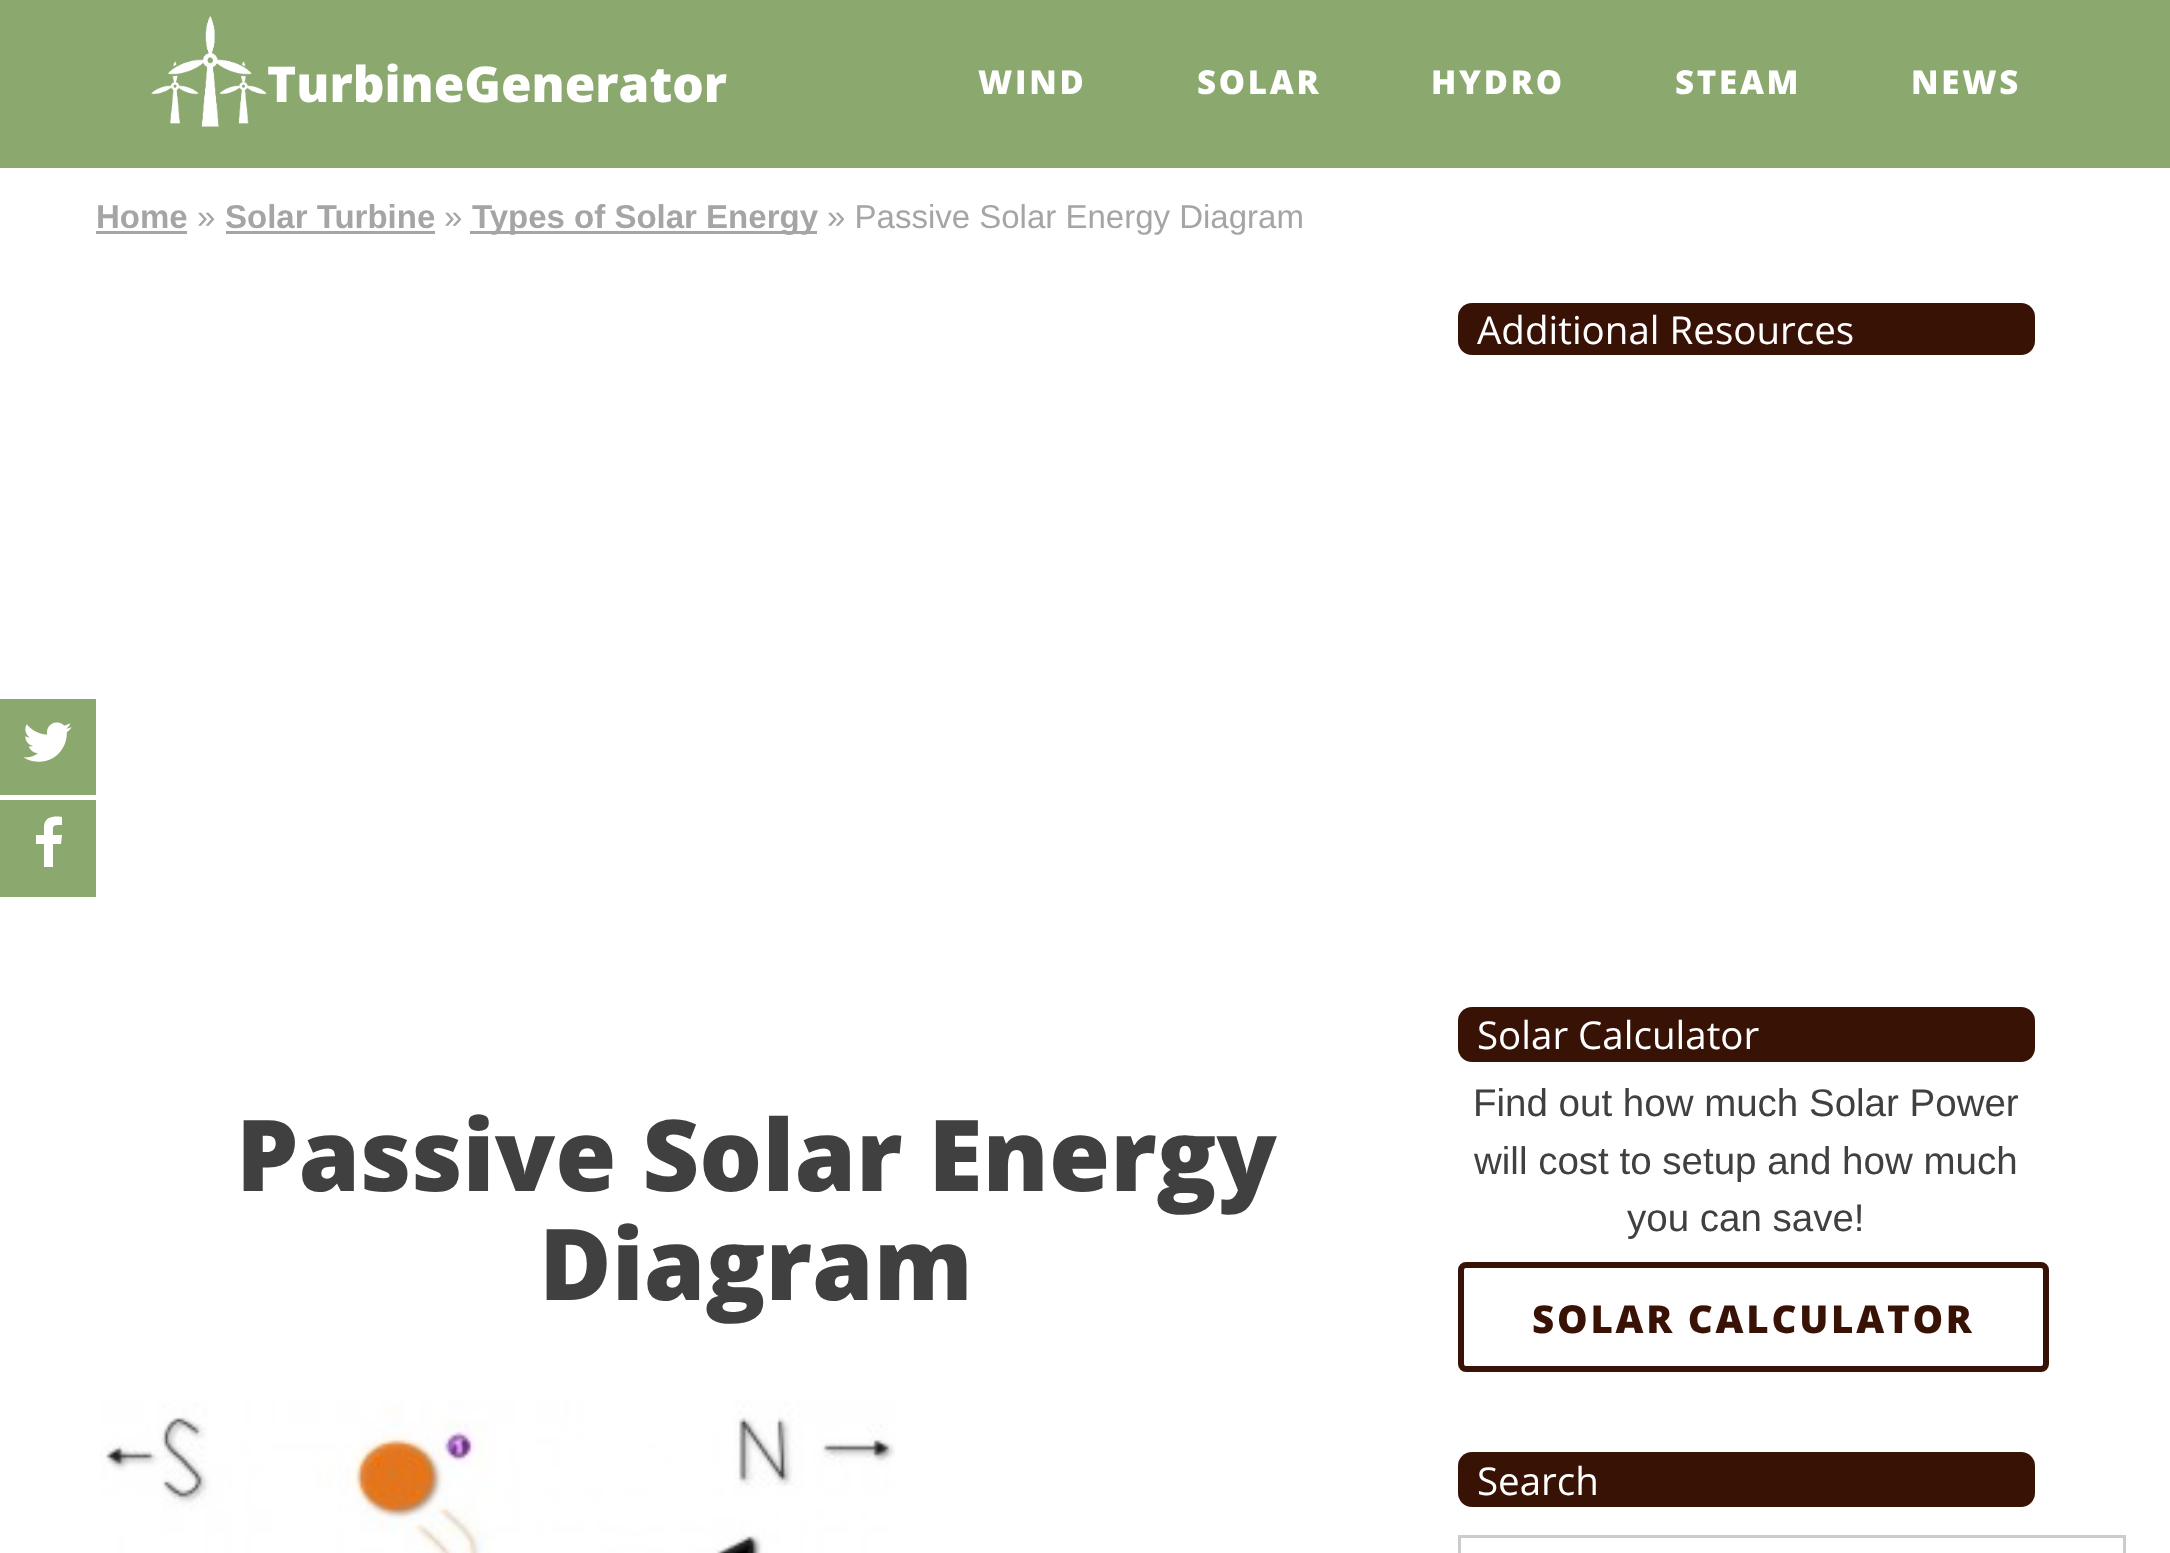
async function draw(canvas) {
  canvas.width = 2170;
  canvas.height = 1553;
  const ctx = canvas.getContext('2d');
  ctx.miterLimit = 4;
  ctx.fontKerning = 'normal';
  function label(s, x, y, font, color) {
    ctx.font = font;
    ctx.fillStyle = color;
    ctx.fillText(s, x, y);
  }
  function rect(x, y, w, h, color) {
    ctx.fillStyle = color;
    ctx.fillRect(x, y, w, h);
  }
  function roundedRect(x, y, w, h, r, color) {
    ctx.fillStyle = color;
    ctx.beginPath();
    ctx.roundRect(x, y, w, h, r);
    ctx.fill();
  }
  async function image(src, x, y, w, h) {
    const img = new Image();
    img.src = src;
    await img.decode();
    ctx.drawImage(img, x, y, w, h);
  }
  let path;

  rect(0, 0, 2170, 1553, '#fff');
  rect(0, 0, 2170, 168, '#8ba96f');
  await image('assets/img1.png', 151, 16, 116, 111);
  label('TurbineGenerator', 267, 102, '800 49.5px Open Sans', '#fff');
  ctx.letterSpacing = '2.75px';
  label('WIND', 978, 94, '800 33px Open Sans', '#fff');
  label('SOLAR', 1197, 94, '800 33px Open Sans', '#fff');
  label('HYDRO', 1431, 94, '800 33px Open Sans', '#fff');
  label('STEAM', 1675, 94, '800 33px Open Sans', '#fff');
  label('NEWS', 1911, 94, '800 33px Open Sans', '#fff');
  rect(0, 699, 96, 96, '#8ba96f');
  await image('assets/img2.png', 23, 722, 49, 40);
  rect(0, 800, 96, 97, '#8ba96f');
  ctx.fillStyle = '#fff';
  path = new Path2D('M62 817V825C52 825 53 825 53 835H62L61 844H53V867H44V844H36V835H44V826C45 816 55 816 62 817Z');
  ctx.fill(path);
  ctx.letterSpacing = '0px';
  label('Home', 96, 228, 'bold 33px Liberation Sans', '#a6a5a5');
  rect(96, 231, 91, 3, '#a6a5a5');
  label('»', 197, 228, '33px Liberation Sans', '#a6a5a5');
  label('Solar Turbine', 225, 228, 'bold 33px Liberation Sans', '#a6a5a5');
  rect(226, 231, 209, 3, '#a6a5a5');
  label('»', 444, 228, '33px Liberation Sans', '#a6a5a5');
  rect(470, 231, 347, 3, '#a6a5a5');
  label('Types of Solar Energy', 472, 228, 'bold 33px Liberation Sans', '#a6a5a5');
  label('» Passive Solar Energy Diagram', 827, 228, '33px Liberation Sans', '#a6a5a5');
  label('Passive Solar Energy', 236, 1191, '800 99px Open Sans', '#404040');
  label('Diagram', 539, 1300, '800 99px Open Sans', '#404040');
  await image('assets/img3.png', 100, 1400, 795, 153);
  roundedRect(1458, 303, 577, 52, 14, '#391206');
  label('Additional Resources', 1477, 344, '38.5px Open Sans', '#fff');
  roundedRect(1458, 1007, 577, 55, 14, '#391206');
  label('Solar Calculator', 1477, 1049, '38.5px Open Sans', '#fff');
  label('Find out how much Solar Power', 1473, 1116, '38.5px Liberation Sans', '#404040');
  label('will cost to setup and how much', 1474, 1174, '38.5px Liberation Sans', '#404040');
  label('you can save!', 1627, 1231, '38.5px Liberation Sans', '#404040');
  ctx.beginPath();
  ctx.roundRect(1461, 1265, 585, 104, 5);
  ctx.strokeStyle = '#391206';
  ctx.lineWidth = 6;
  ctx.stroke();
  ctx.letterSpacing = '2.75px';
  label('SOLAR CALCULATOR', 1532, 1333, '800 38.5px Open Sans', '#391206');
  roundedRect(1458, 1452, 577, 55, 14, '#391206');
  ctx.letterSpacing = '0px';
  label('Search', 1477, 1495, '38.5px Open Sans', '#fff');
  ctx.strokeStyle = '#ccc';
  ctx.lineWidth = 3;
  ctx.strokeRect(1459.5, 1536.5, 665, 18);
}

draw(document.querySelector('canvas'));
